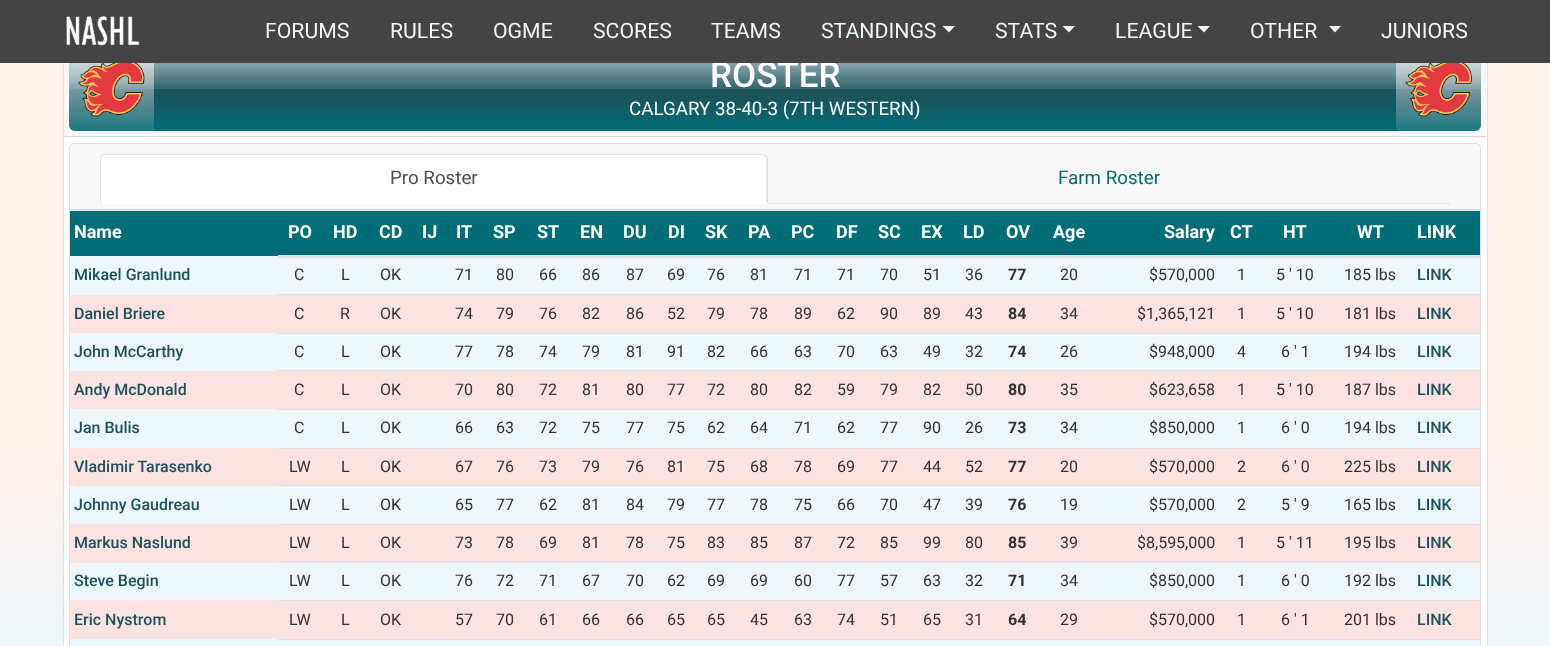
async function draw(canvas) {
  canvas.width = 1550;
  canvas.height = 646;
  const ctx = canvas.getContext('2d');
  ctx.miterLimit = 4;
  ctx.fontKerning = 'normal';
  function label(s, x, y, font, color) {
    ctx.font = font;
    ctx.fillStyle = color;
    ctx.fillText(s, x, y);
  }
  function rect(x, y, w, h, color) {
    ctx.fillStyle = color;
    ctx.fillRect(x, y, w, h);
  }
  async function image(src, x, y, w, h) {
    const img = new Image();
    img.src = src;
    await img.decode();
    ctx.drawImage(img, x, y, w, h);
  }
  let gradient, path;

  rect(0, 0, 1550, 646, '#fff');
  gradient = ctx.createLinearGradient(775, 0, 775, 646);
  gradient.addColorStop(0, '#fff0eb');
  gradient.addColorStop(0.7, '#fff0eb');
  gradient.addColorStop(1, '#edf6f9');
  ctx.fillStyle = gradient;
  ctx.fillRect(0, 63, 1550, 583);
  rect(63, 63, 1425, 583, '#fff');
  ctx.strokeStyle = '#0000001f';
  ctx.strokeRect(63.5, 40.5, 1424, 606);
  rect(64, 63, 1422, 75, '#00000008');
  gradient = ctx.createLinearGradient(775, 46, 775, 131);
  gradient.addColorStop(0, '#1a535c');
  gradient.addColorStop(0.6, '#1a535c');
  gradient.addColorStop(1, '#006d77');
  ctx.fillStyle = gradient;
  ctx.beginPath();
  ctx.roundRect(69, 46, 1412, 85, [0, 0, 6, 6]);
  ctx.fill();
  gradient = ctx.createLinearGradient(775, 46, 775, 89);
  gradient.addColorStop(0, '#a3babe');
  gradient.addColorStop(0.35, '#8da9ae');
  gradient.addColorStop(1, '#31646c');
  ctx.fillStyle = gradient;
  ctx.fillRect(69, 63, 1412, 26);
  gradient = ctx.createLinearGradient(111, 46, 111, 131);
  gradient.addColorStop(0, '#ffffff99');
  gradient.addColorStop(0.35, '#ffffff80');
  gradient.addColorStop(1, '#ffffff1a');
  ctx.fillStyle = gradient;
  ctx.beginPath();
  ctx.roundRect(69, 46, 85, 85, [0, 0, 0, 6]);
  ctx.fill();
  label('ROSTER', 710, 87, '500 35px Roboto', '#fff');
  gradient = ctx.createLinearGradient(1439, 46, 1439, 131);
  gradient.addColorStop(0, '#ffffff99');
  gradient.addColorStop(0.35, '#ffffff80');
  gradient.addColorStop(1, '#ffffff1a');
  ctx.fillStyle = gradient;
  ctx.beginPath();
  ctx.roundRect(1396, 46, 85, 85, [0, 0, 6, 6]);
  ctx.fill();
  rect(0, 0, 1550, 63, '#444');
  await image('assets/img1.png', 66, 16, 74, 30);
  label('FORUMS', 265, 38, '21.25px Roboto', '#edf6f9');
  label('RULES', 390, 38, '21.25px Roboto', '#edf6f9');
  label('OGME', 493, 38, '21.25px Roboto', '#edf6f9');
  label('SCORES', 593, 38, '21.25px Roboto', '#edf6f9');
  label('TEAMS', 711, 38, '21.25px Roboto', '#edf6f9');
  label('STANDINGS', 821, 38, '21.25px Roboto', '#edf6f9');
  path = new Path2D('M942.5 26H955L949 32.5Z');
  ctx.fill(path);
  label('STATS', 995, 38, '21.25px Roboto', '#edf6f9');
  path = new Path2D('M1062.5 26H1075L1069 32.5Z');
  ctx.fill(path);
  label('LEAGUE', 1115, 38, '21.25px Roboto', '#edf6f9');
  path = new Path2D('M1197.5 26H1210L1204 32.5Z');
  ctx.fill(path);
  label('OTHER', 1250, 38, '21.25px Roboto', '#edf6f9');
  path = new Path2D('M1329 26H1341L1335 32.5Z');
  ctx.fill(path);
  label('JUNIORS', 1381, 38, '21.25px Roboto', '#edf6f9');
  rect(64, 136, 1422, 1, '#d8d8d8');
  await image('assets/img2.png', 78, 63, 67, 54);
  label('CALGARY 38-40-3 (7TH WESTERN)', 629, 115, '18.75px Roboto', '#fff');
  await image('assets/img3.png', 1405, 63, 67, 54);
  ctx.beginPath();
  ctx.roundRect(69.5, 143.5, 1411, 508, 4.5);
  ctx.strokeStyle = '#dfdfdf';
  ctx.stroke();
  rect(70, 144, 1410, 65, '#00000008');
  rect(70, 209, 1410, 1, '#d8d8d8');
  rect(768, 203, 682, 1, '#dee2e6');
  ctx.fillStyle = '#fff';
  ctx.beginPath();
  ctx.roundRect(100, 154, 668, 50, [5, 5, 0, 0]);
  ctx.fill();
  ctx.fillStyle = '#dee2e6';
  path = new Path2D('M105 154C104 154 102 154 102 155V156C103 155 104 155 105 155H762C763 155 764 155 765 156L766 155L762 154Z');
  ctx.fill(path);
  path = new Path2D('M766 155L768 157V204L766 202V159C766 158 766 157 765 156Z');
  ctx.fill(path);
  ctx.fillStyle = '#fff';
  path = new Path2D('M768 204L766 202H102L100 204Z');
  ctx.fill(path);
  ctx.fillStyle = '#dee2e6';
  path = new Path2D('M100 204L102 202H101V159C101 158 102 157 102 156V155C101 156 100 157 100 159Z');
  ctx.fill(path);
  label('Pro Roster', 390, 184, '18.75px Roboto', '#495057');
  label('Farm Roster', 1058, 184, '18.75px Roboto', '#006d77');
  rect(276, 255, 1204, 3, '#dee2e6');
  rect(70, 211, 208, 45, '#006d77');
  label('Name', 74, 238, 'bold 18px Roboto', '#fff');
  rect(278, 211, 1202, 44, '#006d77');
  label('PO', 288, 238, 'bold 18px Roboto', '#fff');
  label('HD', 333, 238, 'bold 18px Roboto', '#fff');
  label('CD', 379, 238, 'bold 18px Roboto', '#fff');
  label('IJ', 422, 238, 'bold 18px Roboto', '#fff');
  label('IT', 456, 238, 'bold 18px Roboto', '#fff');
  label('SP', 493, 238, 'bold 18px Roboto', '#fff');
  label('ST', 537, 238, 'bold 18px Roboto', '#fff');
  label('EN', 580, 238, 'bold 18px Roboto', '#fff');
  label('DU', 623, 238, 'bold 18px Roboto', '#fff');
  label('DI', 668, 238, 'bold 18px Roboto', '#fff');
  label('SK', 705, 238, 'bold 18px Roboto', '#fff');
  label('PA', 748, 238, 'bold 18px Roboto', '#fff');
  label('PC', 791, 238, 'bold 18px Roboto', '#fff');
  label('DF', 836, 238, 'bold 18px Roboto', '#fff');
  label('SC', 878, 238, 'bold 18px Roboto', '#fff');
  label('EX', 921, 238, 'bold 18px Roboto', '#fff');
  label('LD', 963, 238, 'bold 18px Roboto', '#fff');
  label('OV', 1006, 238, 'bold 18px Roboto', '#fff');
  label('Age', 1053, 238, 'bold 18px Roboto', '#fff');
  label('Salary', 1164, 238, 'bold 18px Roboto', '#fff');
  label('CT', 1230, 238, 'bold 18px Roboto', '#fff');
  label('HT', 1283, 238, 'bold 18px Roboto', '#fff');
  label('WT', 1357, 238, 'bold 18px Roboto', '#fff');
  rect(70, 210, 1410, 1, '#dee2e6');
  label('LINK', 1417, 238, 'bold 18px Roboto', '#fff');
  rect(276, 294, 1204, 1, '#dee2e6');
  rect(70, 256, 208, 39, '#edf6f9');
  label('Mikael Granlund', 74, 280, '500 16px Roboto', '#1a535c');
  rect(278, 258, 1202, 36, '#edf6f9');
  label('C', 294, 280, '16px Roboto', '#323232');
  label('L', 341, 280, '16px Roboto', '#323232');
  label('OK', 380, 280, '16px Roboto', '#323232');
  label('71', 455, 280, '16px Roboto', '#323232');
  label('80', 496, 280, '16px Roboto', '#323232');
  label('66', 539, 280, '16px Roboto', '#323232');
  label('86', 582, 280, '16px Roboto', '#323232');
  label('87', 626, 280, '16px Roboto', '#323232');
  label('69', 667, 280, '16px Roboto', '#323232');
  label('76', 707, 280, '16px Roboto', '#323232');
  label('81', 750, 280, '16px Roboto', '#323232');
  label('71', 794, 280, '16px Roboto', '#323232');
  label('71', 837, 280, '16px Roboto', '#323232');
  label('70', 880, 280, '16px Roboto', '#323232');
  label('51', 923, 280, '16px Roboto', '#323232');
  label('36', 965, 280, '16px Roboto', '#323232');
  label('77', 1008, 280, 'bold 16px Roboto', '#323232');
  label('20', 1060, 280, '16px Roboto', '#323232');
  label('$570,000', 1149, 280, '16px Roboto', '#323232');
  label('1', 1237, 280, '16px Roboto', '#323232');
  label('5 \' 10', 1276, 280, '16px Roboto', '#323232');
  label('185 lbs', 1344, 280, '16px Roboto', '#323232');
  label('LINK', 1417, 280, '500 16px Roboto', '#1a535c');
  rect(70, 295, 208, 38, '#fce3e1');
  label('Daniel Briere', 74, 319, '500 16px Roboto', '#1a535c');
  rect(278, 295, 1202, 38, '#fce3e1');
  label('C', 294, 319, '16px Roboto', '#323232');
  label('R', 340, 319, '16px Roboto', '#323232');
  label('OK', 380, 319, '16px Roboto', '#323232');
  label('74', 455, 319, '16px Roboto', '#323232');
  label('79', 496, 319, '16px Roboto', '#323232');
  label('76', 539, 319, '16px Roboto', '#323232');
  label('82', 582, 319, '16px Roboto', '#323232');
  label('86', 626, 319, '16px Roboto', '#323232');
  label('52', 667, 319, '16px Roboto', '#323232');
  label('79', 707, 319, '16px Roboto', '#323232');
  label('78', 750, 319, '16px Roboto', '#323232');
  label('89', 794, 319, '16px Roboto', '#323232');
  label('62', 837, 319, '16px Roboto', '#323232');
  label('90', 880, 319, '16px Roboto', '#323232');
  label('89', 923, 319, '16px Roboto', '#323232');
  label('43', 965, 319, '16px Roboto', '#323232');
  label('84', 1008, 319, 'bold 16px Roboto', '#323232');
  label('34', 1060, 319, '16px Roboto', '#323232');
  label('$1,365,121', 1137, 319, '16px Roboto', '#323232');
  label('1', 1237, 319, '16px Roboto', '#323232');
  label('5 \' 10', 1276, 319, '16px Roboto', '#323232');
  label('181 lbs', 1344, 319, '16px Roboto', '#323232');
  label('LINK', 1417, 319, '500 16px Roboto', '#1a535c');
  rect(276, 333, 1204, 1, '#dee2e6');
  rect(276, 370, 1204, 1, '#dee2e6');
  rect(70, 333, 208, 38, '#edf6f9');
  label('John McCarthy', 74, 357, '500 16px Roboto', '#1a535c');
  rect(278, 334, 1202, 36, '#edf6f9');
  label('C', 294, 357, '16px Roboto', '#323232');
  label('L', 341, 357, '16px Roboto', '#323232');
  label('OK', 380, 357, '16px Roboto', '#323232');
  label('77', 455, 357, '16px Roboto', '#323232');
  label('78', 496, 357, '16px Roboto', '#323232');
  label('74', 539, 357, '16px Roboto', '#323232');
  label('79', 582, 357, '16px Roboto', '#323232');
  label('81', 626, 357, '16px Roboto', '#323232');
  label('91', 667, 357, '16px Roboto', '#323232');
  label('82', 707, 357, '16px Roboto', '#323232');
  label('66', 750, 357, '16px Roboto', '#323232');
  label('63', 794, 357, '16px Roboto', '#323232');
  label('70', 837, 357, '16px Roboto', '#323232');
  label('63', 880, 357, '16px Roboto', '#323232');
  label('49', 923, 357, '16px Roboto', '#323232');
  label('32', 965, 357, '16px Roboto', '#323232');
  label('74', 1008, 357, 'bold 16px Roboto', '#323232');
  label('26', 1060, 357, '16px Roboto', '#323232');
  label('$948,000', 1149, 357, '16px Roboto', '#323232');
  label('4', 1237, 357, '16px Roboto', '#323232');
  label('6 \' 1', 1281, 357, '16px Roboto', '#323232');
  label('194 lbs', 1344, 357, '16px Roboto', '#323232');
  label('LINK', 1417, 357, '500 16px Roboto', '#1a535c');
  rect(70, 371, 208, 38, '#fce3e1');
  label('Andy McDonald', 74, 395, '500 16px Roboto', '#1a535c');
  rect(278, 371, 1202, 38, '#fce3e1');
  label('C', 294, 395, '16px Roboto', '#323232');
  label('L', 341, 395, '16px Roboto', '#323232');
  label('OK', 380, 395, '16px Roboto', '#323232');
  label('70', 455, 395, '16px Roboto', '#323232');
  label('80', 496, 395, '16px Roboto', '#323232');
  label('72', 539, 395, '16px Roboto', '#323232');
  label('81', 582, 395, '16px Roboto', '#323232');
  label('80', 626, 395, '16px Roboto', '#323232');
  label('77', 667, 395, '16px Roboto', '#323232');
  label('72', 707, 395, '16px Roboto', '#323232');
  label('80', 750, 395, '16px Roboto', '#323232');
  label('82', 794, 395, '16px Roboto', '#323232');
  label('59', 837, 395, '16px Roboto', '#323232');
  label('79', 880, 395, '16px Roboto', '#323232');
  label('82', 923, 395, '16px Roboto', '#323232');
  label('50', 965, 395, '16px Roboto', '#323232');
  label('80', 1008, 395, 'bold 16px Roboto', '#323232');
  label('35', 1060, 395, '16px Roboto', '#323232');
  label('$623,658', 1149, 395, '16px Roboto', '#323232');
  label('1', 1237, 395, '16px Roboto', '#323232');
  label('5 \' 10', 1276, 395, '16px Roboto', '#323232');
  label('187 lbs', 1344, 395, '16px Roboto', '#323232');
  label('LINK', 1417, 395, '500 16px Roboto', '#1a535c');
  rect(276, 409, 1204, 1, '#dee2e6');
  rect(70, 409, 208, 39, '#edf6f9');
  label('Jan Bulis', 74, 433, '500 16px Roboto', '#1a535c');
  rect(278, 410, 1202, 38, '#edf6f9');
  label('C', 294, 433, '16px Roboto', '#323232');
  label('L', 341, 433, '16px Roboto', '#323232');
  label('OK', 380, 433, '16px Roboto', '#323232');
  label('66', 455, 433, '16px Roboto', '#323232');
  label('63', 496, 433, '16px Roboto', '#323232');
  label('72', 539, 433, '16px Roboto', '#323232');
  label('75', 582, 433, '16px Roboto', '#323232');
  label('77', 626, 433, '16px Roboto', '#323232');
  label('75', 667, 433, '16px Roboto', '#323232');
  label('62', 707, 433, '16px Roboto', '#323232');
  label('64', 750, 433, '16px Roboto', '#323232');
  label('71', 794, 433, '16px Roboto', '#323232');
  label('62', 837, 433, '16px Roboto', '#323232');
  label('77', 880, 433, '16px Roboto', '#323232');
  label('90', 923, 433, '16px Roboto', '#323232');
  label('26', 965, 433, '16px Roboto', '#323232');
  label('73', 1008, 433, 'bold 16px Roboto', '#323232');
  label('34', 1060, 433, '16px Roboto', '#323232');
  label('$850,000', 1149, 433, '16px Roboto', '#323232');
  label('1', 1237, 433, '16px Roboto', '#323232');
  label('6 \' 0', 1281, 433, '16px Roboto', '#323232');
  label('194 lbs', 1344, 433, '16px Roboto', '#323232');
  label('LINK', 1417, 433, '500 16px Roboto', '#1a535c');
  rect(276, 448, 1204, 1, '#dee2e6');
  rect(276, 485, 1204, 1, '#dee2e6');
  rect(70, 448, 208, 38, '#fce3e1');
  label('Vladimir Tarasenko', 74, 472, '500 16px Roboto', '#1a535c');
  rect(278, 449, 1202, 36, '#fce3e1');
  label('LW', 289, 472, '16px Roboto', '#323232');
  label('L', 341, 472, '16px Roboto', '#323232');
  label('OK', 380, 472, '16px Roboto', '#323232');
  label('67', 455, 472, '16px Roboto', '#323232');
  label('76', 496, 472, '16px Roboto', '#323232');
  label('73', 539, 472, '16px Roboto', '#323232');
  label('79', 582, 472, '16px Roboto', '#323232');
  label('76', 626, 472, '16px Roboto', '#323232');
  label('81', 667, 472, '16px Roboto', '#323232');
  label('75', 707, 472, '16px Roboto', '#323232');
  label('68', 750, 472, '16px Roboto', '#323232');
  label('78', 794, 472, '16px Roboto', '#323232');
  label('69', 837, 472, '16px Roboto', '#323232');
  label('77', 880, 472, '16px Roboto', '#323232');
  label('44', 923, 472, '16px Roboto', '#323232');
  label('52', 965, 472, '16px Roboto', '#323232');
  label('77', 1008, 472, 'bold 16px Roboto', '#323232');
  label('20', 1060, 472, '16px Roboto', '#323232');
  label('$570,000', 1149, 472, '16px Roboto', '#323232');
  label('2', 1237, 472, '16px Roboto', '#323232');
  label('6 \' 0', 1281, 472, '16px Roboto', '#323232');
  label('225 lbs', 1344, 472, '16px Roboto', '#323232');
  label('LINK', 1417, 472, '500 16px Roboto', '#1a535c');
  rect(70, 486, 208, 38, '#edf6f9');
  label('Johnny Gaudreau', 74, 510, '500 16px Roboto', '#1a535c');
  rect(278, 486, 1202, 38, '#edf6f9');
  label('LW', 289, 510, '16px Roboto', '#323232');
  label('L', 341, 510, '16px Roboto', '#323232');
  label('OK', 380, 510, '16px Roboto', '#323232');
  label('65', 455, 510, '16px Roboto', '#323232');
  label('77', 496, 510, '16px Roboto', '#323232');
  label('62', 539, 510, '16px Roboto', '#323232');
  label('81', 582, 510, '16px Roboto', '#323232');
  label('84', 626, 510, '16px Roboto', '#323232');
  label('79', 667, 510, '16px Roboto', '#323232');
  label('77', 707, 510, '16px Roboto', '#323232');
  label('78', 750, 510, '16px Roboto', '#323232');
  label('75', 794, 510, '16px Roboto', '#323232');
  label('66', 837, 510, '16px Roboto', '#323232');
  label('70', 880, 510, '16px Roboto', '#323232');
  label('47', 923, 510, '16px Roboto', '#323232');
  label('39', 965, 510, '16px Roboto', '#323232');
  label('76', 1008, 510, 'bold 16px Roboto', '#323232');
  label('19', 1060, 510, '16px Roboto', '#323232');
  label('$570,000', 1149, 510, '16px Roboto', '#323232');
  label('2', 1237, 510, '16px Roboto', '#323232');
  label('5 \' 9', 1281, 510, '16px Roboto', '#323232');
  label('165 lbs', 1344, 510, '16px Roboto', '#323232');
  label('LINK', 1417, 510, '500 16px Roboto', '#1a535c');
  rect(276, 524, 1204, 1, '#dee2e6');
  rect(278, 525, 1202, 38, '#fce3e1');
  rect(276, 561, 1204, 1, '#dee2e6');
  rect(70, 524, 208, 39, '#fce3e1');
  label('Markus Naslund', 74, 548, '500 16px Roboto', '#1a535c');
  label('LW', 289, 548, '16px Roboto', '#323232');
  label('L', 341, 548, '16px Roboto', '#323232');
  label('OK', 380, 548, '16px Roboto', '#323232');
  label('73', 455, 548, '16px Roboto', '#323232');
  label('78', 496, 548, '16px Roboto', '#323232');
  label('69', 539, 548, '16px Roboto', '#323232');
  label('81', 582, 548, '16px Roboto', '#323232');
  label('78', 626, 548, '16px Roboto', '#323232');
  label('75', 667, 548, '16px Roboto', '#323232');
  label('83', 707, 548, '16px Roboto', '#323232');
  label('85', 750, 548, '16px Roboto', '#323232');
  label('87', 794, 548, '16px Roboto', '#323232');
  label('72', 837, 548, '16px Roboto', '#323232');
  label('85', 880, 548, '16px Roboto', '#323232');
  label('99', 923, 548, '16px Roboto', '#323232');
  label('80', 965, 548, '16px Roboto', '#323232');
  label('85', 1008, 548, 'bold 16px Roboto', '#323232');
  label('39', 1060, 548, '16px Roboto', '#323232');
  label('$8,595,000', 1137, 548, '16px Roboto', '#323232');
  label('1', 1237, 548, '16px Roboto', '#323232');
  label('5 \' 11', 1276, 548, '16px Roboto', '#323232');
  label('195 lbs', 1344, 548, '16px Roboto', '#323232');
  label('LINK', 1417, 548, '500 16px Roboto', '#1a535c');
  rect(70, 563, 208, 37, '#edf6f9');
  label('Steve Begin', 74, 586, '500 16px Roboto', '#1a535c');
  rect(278, 563, 1202, 37, '#edf6f9');
  label('LW', 289, 586, '16px Roboto', '#323232');
  label('L', 341, 586, '16px Roboto', '#323232');
  label('OK', 380, 586, '16px Roboto', '#323232');
  label('76', 455, 586, '16px Roboto', '#323232');
  label('72', 496, 586, '16px Roboto', '#323232');
  label('71', 539, 586, '16px Roboto', '#323232');
  label('67', 582, 586, '16px Roboto', '#323232');
  label('70', 626, 586, '16px Roboto', '#323232');
  label('62', 667, 586, '16px Roboto', '#323232');
  label('69', 707, 586, '16px Roboto', '#323232');
  label('69', 750, 586, '16px Roboto', '#323232');
  label('60', 794, 586, '16px Roboto', '#323232');
  label('77', 837, 586, '16px Roboto', '#323232');
  label('57', 880, 586, '16px Roboto', '#323232');
  label('63', 923, 586, '16px Roboto', '#323232');
  label('32', 965, 586, '16px Roboto', '#323232');
  label('71', 1008, 586, 'bold 16px Roboto', '#323232');
  label('34', 1060, 586, '16px Roboto', '#323232');
  label('$850,000', 1149, 586, '16px Roboto', '#323232');
  label('1', 1237, 586, '16px Roboto', '#323232');
  label('6 \' 0', 1281, 586, '16px Roboto', '#323232');
  label('192 lbs', 1344, 586, '16px Roboto', '#323232');
  label('LINK', 1417, 586, '500 16px Roboto', '#1a535c');
  rect(276, 600, 1204, 1, '#dee2e6');
  rect(70, 600, 208, 39, '#fce3e1');
  label('Eric Nystrom', 74, 625, '500 16px Roboto', '#1a535c');
  rect(278, 601, 1202, 38, '#fce3e1');
  label('LW', 289, 625, '16px Roboto', '#323232');
  label('L', 341, 625, '16px Roboto', '#323232');
  label('OK', 380, 625, '16px Roboto', '#323232');
  label('57', 455, 625, '16px Roboto', '#323232');
  label('70', 496, 625, '16px Roboto', '#323232');
  label('61', 539, 625, '16px Roboto', '#323232');
  label('66', 582, 625, '16px Roboto', '#323232');
  label('66', 626, 625, '16px Roboto', '#323232');
  label('65', 667, 625, '16px Roboto', '#323232');
  label('65', 707, 625, '16px Roboto', '#323232');
  label('45', 750, 625, '16px Roboto', '#323232');
  label('63', 794, 625, '16px Roboto', '#323232');
  label('74', 837, 625, '16px Roboto', '#323232');
  label('51', 880, 625, '16px Roboto', '#323232');
  label('65', 923, 625, '16px Roboto', '#323232');
  label('31', 965, 625, '16px Roboto', '#323232');
  label('64', 1008, 625, 'bold 16px Roboto', '#323232');
  label('29', 1060, 625, '16px Roboto', '#323232');
  label('$570,000', 1149, 625, '16px Roboto', '#323232');
  label('1', 1237, 625, '16px Roboto', '#323232');
  label('6 \' 1', 1281, 625, '16px Roboto', '#323232');
  label('201 lbs', 1344, 625, '16px Roboto', '#323232');
  label('LINK', 1417, 625, '500 16px Roboto', '#1a535c');
  rect(276, 639, 1204, 1, '#dee2e6');
  rect(70, 639, 208, 7, '#edf6f9');
  rect(278, 640, 1202, 6, '#edf6f9');
}

draw(document.querySelector('canvas'));
